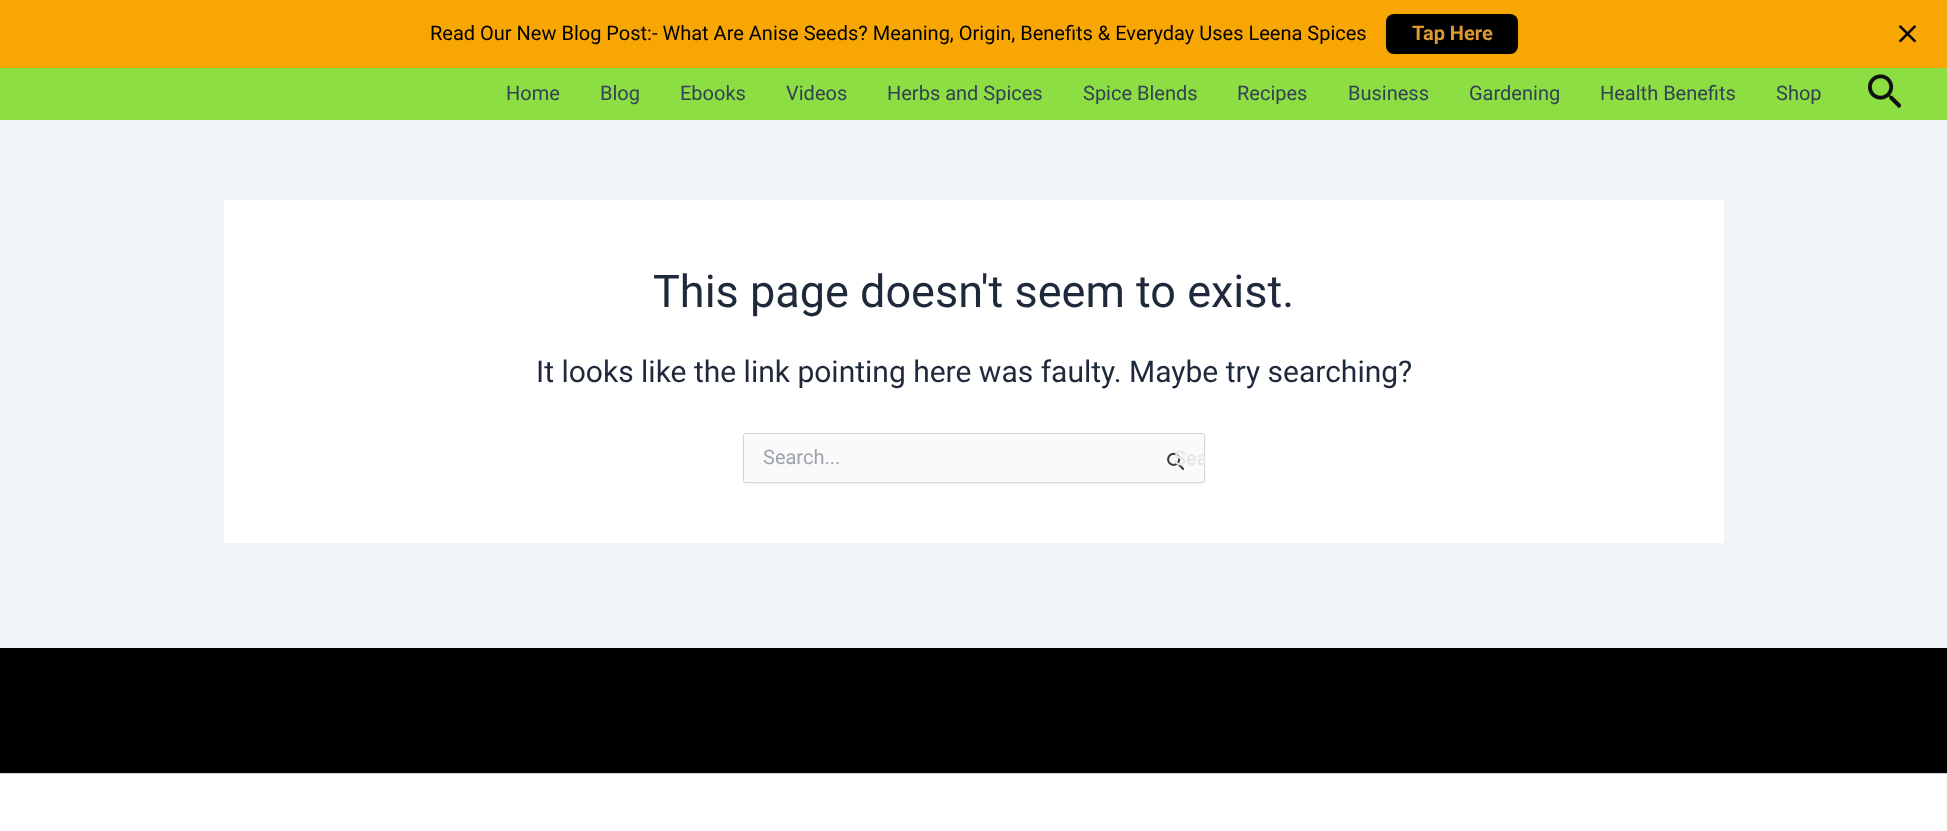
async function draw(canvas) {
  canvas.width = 1947;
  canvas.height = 831;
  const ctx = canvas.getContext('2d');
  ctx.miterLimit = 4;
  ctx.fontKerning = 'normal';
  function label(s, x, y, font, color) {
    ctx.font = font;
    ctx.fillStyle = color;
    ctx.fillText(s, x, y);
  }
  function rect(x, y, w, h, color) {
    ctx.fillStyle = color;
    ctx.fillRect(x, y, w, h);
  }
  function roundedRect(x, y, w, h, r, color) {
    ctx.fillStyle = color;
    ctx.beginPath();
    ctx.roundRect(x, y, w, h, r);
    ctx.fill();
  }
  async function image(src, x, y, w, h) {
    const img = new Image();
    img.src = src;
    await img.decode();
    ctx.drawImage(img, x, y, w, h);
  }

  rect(0, 0, 1947, 831, '#f0f5fa');
  rect(0, 0, 1947, 68, '#f7a604');
  label('Read Our New Blog Post:- What Are Anise Seeds? Meaning, Origin, Benefits & Everyday Uses Leena Spices', 430, 40, '20px Roboto', '#000');
  roundedRect(1386, 14, 132, 40, 8, '#000');
  label('Tap Here', 1412, 40, 'bold 20px Roboto', '#d93');
  await image('assets/img1.png', 1898, 25, 19, 18);
  rect(0, 68, 1947, 52, '#8dde43');
  label('Home', 506, 100, '20px Roboto', '#334155');
  label('Blog', 600, 100, '20px Roboto', '#334155');
  label('Ebooks', 680, 100, '20px Roboto', '#334155');
  label('Videos', 786, 100, '20px Roboto', '#334155');
  label('Herbs and Spices', 887, 100, '20px Roboto', '#334155');
  label('Spice Blends', 1083, 100, '20px Roboto', '#334155');
  label('Recipes', 1237, 100, '20px Roboto', '#334155');
  label('Business', 1348, 100, '20px Roboto', '#334155');
  label('Gardening', 1469, 100, '20px Roboto', '#334155');
  label('Health Benefits', 1600, 100, '20px Roboto', '#334155');
  label('Shop', 1776, 100, '20px Roboto', '#334155');
  await image('assets/img2.png', 1868, 74, 33, 35);
  rect(224, 200, 1500, 343, '#fff');
  label('This page doesn\'t seem to exist.', 653, 307, '45px Roboto', '#1e293b');
  label('It looks like the link pointing here was faulty. Maybe try searching?', 536, 382, '30px Roboto', '#1e293b');
  ctx.fillStyle = '#0000000d';
  ctx.filter = 'blur(1px)';
  ctx.beginPath();
  ctx.roundRect(743, 434, 462, 50, 2.5);
  ctx.fill();
  ctx.filter = 'none';
  ctx.fillStyle = '#fafafa';
  ctx.beginPath();
  ctx.roundRect(743.5, 433.5, 461, 49, 2);
  ctx.fill();
  ctx.strokeStyle = '#d1d5db';
  ctx.stroke();
  label('Search...', 763, 464, '20px Roboto', '#9ca3af');
  await image('assets/img3.png', 1167, 452, 17, 19);
  ctx.save();
  ctx.beginPath();
  ctx.roundRect(1149, 433, 56, 52, 2.5);
  ctx.clip();
  label('Sea', 1174, 465, '500 20px Roboto', '#e6e6e6');
  ctx.restore();
  rect(0, 648, 1947, 125, '#000');
  rect(0, 774, 1947, 57, '#fff');
  rect(0, 773, 1947, 1, '#d1d5db');
}

draw(document.querySelector('canvas'));
